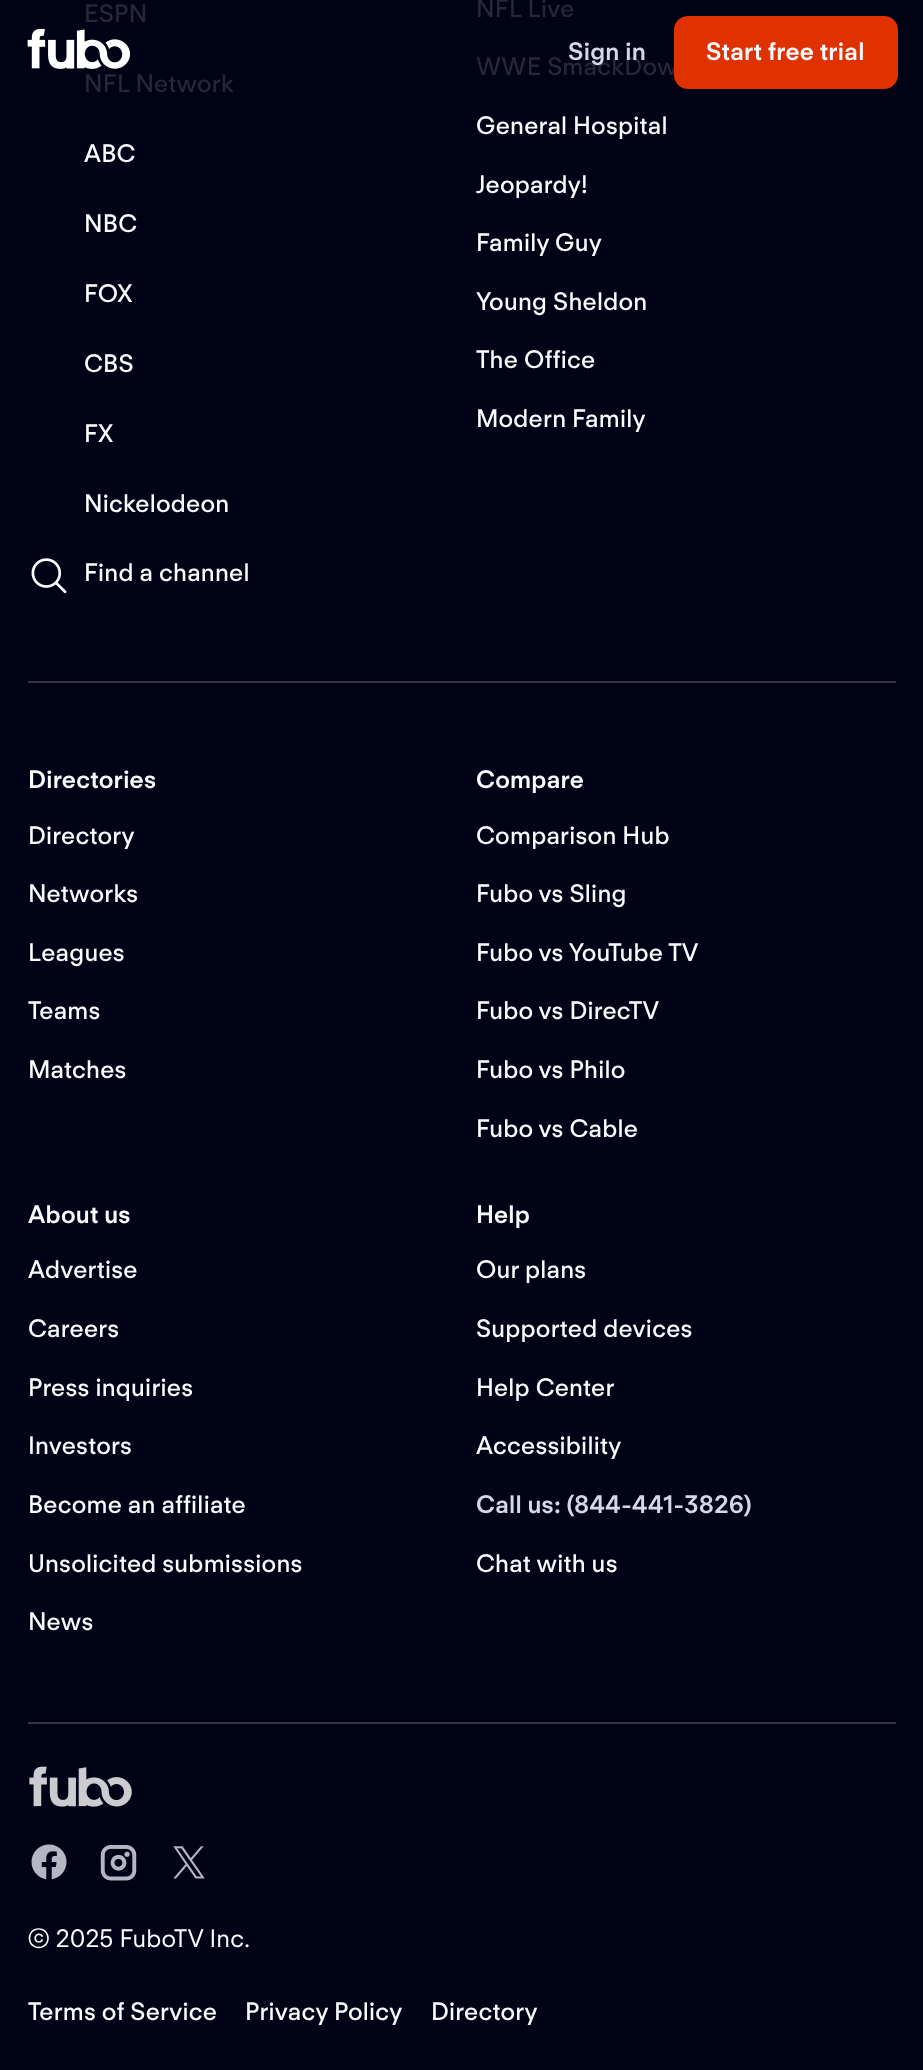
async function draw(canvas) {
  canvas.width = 923;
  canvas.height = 2070;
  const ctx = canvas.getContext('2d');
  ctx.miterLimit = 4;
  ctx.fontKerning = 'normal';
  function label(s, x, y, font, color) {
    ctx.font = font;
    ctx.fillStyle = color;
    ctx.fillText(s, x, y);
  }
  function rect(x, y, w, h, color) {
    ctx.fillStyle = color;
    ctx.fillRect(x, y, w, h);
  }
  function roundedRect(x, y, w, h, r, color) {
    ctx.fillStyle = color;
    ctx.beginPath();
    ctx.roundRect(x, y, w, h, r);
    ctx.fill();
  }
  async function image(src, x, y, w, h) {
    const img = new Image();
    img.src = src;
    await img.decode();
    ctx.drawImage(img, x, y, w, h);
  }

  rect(0, 0, 923, 2070, '#000215');
  ctx.letterSpacing = '0.25px';
  label('ESPN', 84, 22, '500 24.5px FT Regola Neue', '#262738');
  label('NFL Network', 84, 92, '500 24.5px FT Regola Neue', '#262738');
  label('ABC', 84, 162, '500 24.5px FT Regola Neue', '#fafbff');
  label('NBC', 84, 232, '500 24.5px FT Regola Neue', '#fafbff');
  label('FOX', 84, 302, '500 24.5px FT Regola Neue', '#fafbff');
  label('CBS', 84, 372, '500 24.5px FT Regola Neue', '#fafbff');
  label('FX', 84, 442, '500 24.5px FT Regola Neue', '#fafbff');
  label('Nickelodeon', 84, 512, '500 24.5px FT Regola Neue', '#fafbff');
  await image('assets/img1.png', 31, 558, 36, 36);
  label('Find a channel', 84, 581, '500 24.5px FT Regola Neue', '#fafbff');
  label('NFL Live', 476, 17, '500 24.5px FT Regola Neue', '#262738');
  label('WWE SmackDow', 476, 75, '500 24.5px FT Regola Neue', '#262738');
  label('General Hospital', 476, 134, '500 24.5px FT Regola Neue', '#fafbff');
  label('Jeopardy!', 476, 193, '500 24.5px FT Regola Neue', '#fafbff');
  label('Family Guy', 476, 251, '500 24.5px FT Regola Neue', '#fafbff');
  label('Young Sheldon', 476, 310, '500 24.5px FT Regola Neue', '#fafbff');
  label('The Office', 476, 368, '500 24.5px FT Regola Neue', '#fafbff');
  label('Modern Family', 476, 427, '500 24.5px FT Regola Neue', '#fafbff');
  rect(28, 681, 868, 2, '#333544');
  label('Directories', 28, 788, '600 24.5px FT Regola Neue', '#fafbff');
  label('Directory', 28, 844, '500 24.5px FT Regola Neue', '#fafbff');
  label('Networks', 28, 902, '500 24.5px FT Regola Neue', '#fafbff');
  label('Leagues', 28, 961, '500 24.5px FT Regola Neue', '#fafbff');
  label('Teams', 28, 1019, '500 24.5px FT Regola Neue', '#fafbff');
  label('Matches', 28, 1078, '500 24.5px FT Regola Neue', '#fafbff');
  label('Compare', 476, 788, '600 24.5px FT Regola Neue', '#fafbff');
  label('Comparison Hub', 476, 844, '500 24.5px FT Regola Neue', '#fafbff');
  label('Fubo vs Sling', 476, 902, '500 24.5px FT Regola Neue', '#fafbff');
  label('Fubo vs YouTube TV', 476, 961, '500 24.5px FT Regola Neue', '#fafbff');
  label('Fubo vs DirecTV', 476, 1019, '500 24.5px FT Regola Neue', '#fafbff');
  label('Fubo vs Philo', 476, 1078, '500 24.5px FT Regola Neue', '#fafbff');
  label('Fubo vs Cable', 476, 1137, '500 24.5px FT Regola Neue', '#fafbff');
  label('About us', 28, 1223, '600 24.5px FT Regola Neue', '#fafbff');
  label('Advertise', 28, 1278, '500 24.5px FT Regola Neue', '#fafbff');
  label('Careers', 28, 1337, '500 24.5px FT Regola Neue', '#fafbff');
  label('Press inquiries', 28, 1396, '500 24.5px FT Regola Neue', '#fafbff');
  label('Investors', 28, 1454, '500 24.5px FT Regola Neue', '#fafbff');
  label('Become an affiliate', 28, 1513, '500 24.5px FT Regola Neue', '#fafbff');
  label('Unsolicited submissions', 28, 1572, '500 24.5px FT Regola Neue', '#fafbff');
  label('News', 28, 1630, '500 24.5px FT Regola Neue', '#fafbff');
  label('Help', 476, 1223, '600 24.5px FT Regola Neue', '#fafbff');
  label('Our plans', 476, 1278, '500 24.5px FT Regola Neue', '#fafbff');
  label('Supported devices', 476, 1337, '500 24.5px FT Regola Neue', '#fafbff');
  label('Help Center', 476, 1396, '500 24.5px FT Regola Neue', '#fafbff');
  label('Accessibility', 476, 1454, '500 24.5px FT Regola Neue', '#fafbff');
  label('Call us: (844-441-3826)', 476, 1513, '600 24.5px FT Regola Neue', '#d5d8e7');
  label('Chat with us', 476, 1572, '500 24.5px FT Regola Neue', '#fafbff');
  rect(28, 1722, 868, 2, '#333544');
  await image('assets/img2.png', 29, 1766, 103, 41);
  await image('assets/img3.png', 31, 1844, 36, 36);
  await image('assets/img4.png', 100, 1845, 37, 36);
  await image('assets/img5.png', 173, 1846, 32, 33);
  label('© 2025 FuboTV Inc.', 28, 1947, '24.5px FT Regola Neue', '#fafbff');
  label('Terms of Service', 28, 2020, '500 24.5px FT Regola Neue', '#fafbff');
  label('Privacy Policy', 245, 2020, '500 24.5px FT Regola Neue', '#fafbff');
  label('Directory', 431, 2020, '500 24.5px FT Regola Neue', '#fafbff');
  await image('assets/img6.png', 27, 28, 104, 41);
  label('Sign in', 568, 60, '600 24.5px FT Regola Neue', '#d5d8e7');
  roundedRect(674, 16, 224, 73, 14, '#e03100');
  label('Start free trial', 706, 60, '600 24.5px FT Regola Neue', '#fafbff');
}

draw(document.querySelector('canvas'));
